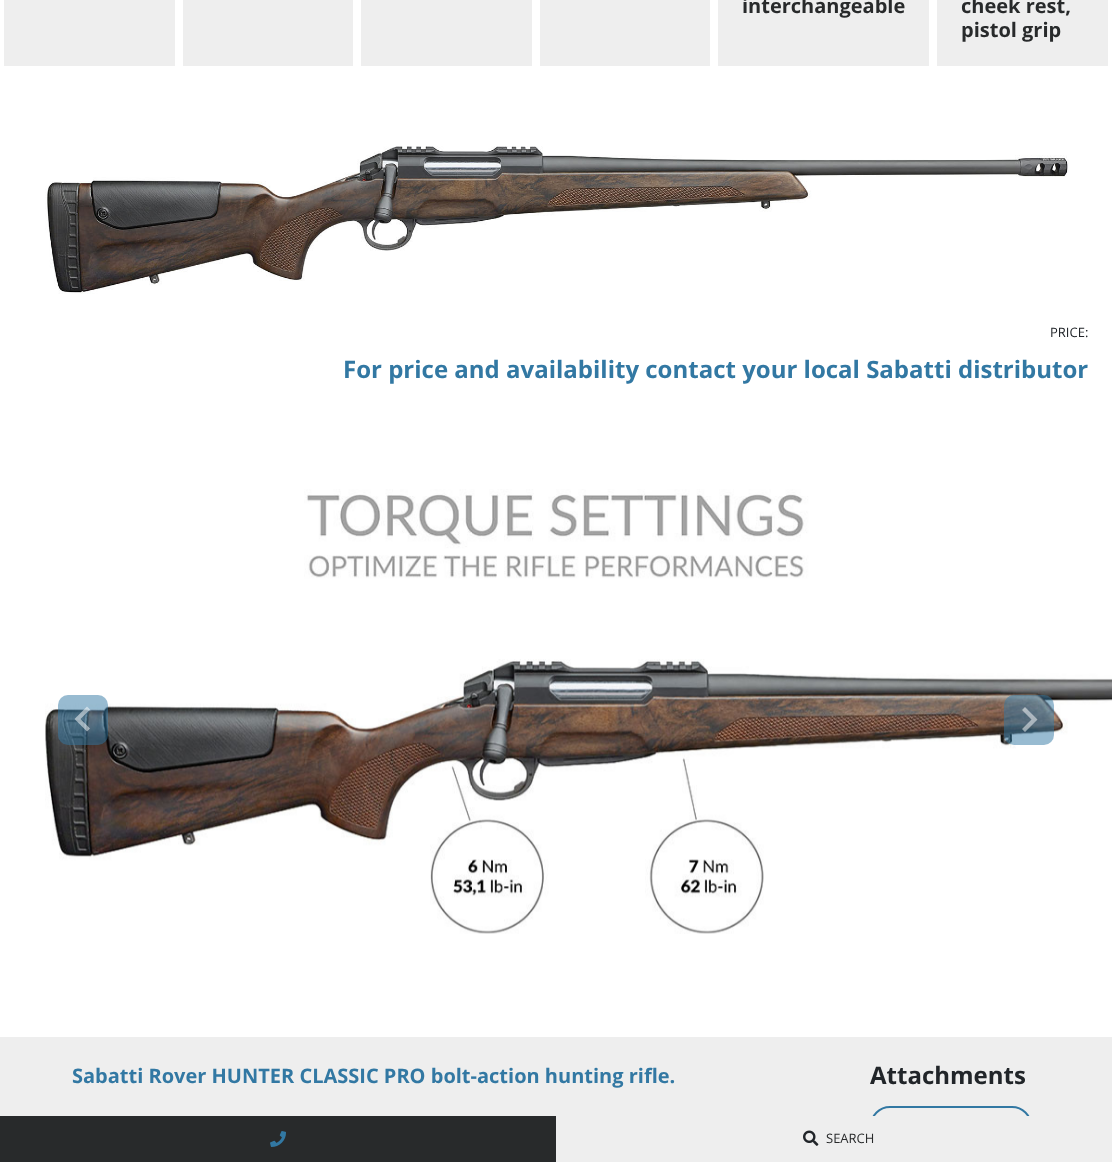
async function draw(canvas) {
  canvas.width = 1112;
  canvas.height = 1162;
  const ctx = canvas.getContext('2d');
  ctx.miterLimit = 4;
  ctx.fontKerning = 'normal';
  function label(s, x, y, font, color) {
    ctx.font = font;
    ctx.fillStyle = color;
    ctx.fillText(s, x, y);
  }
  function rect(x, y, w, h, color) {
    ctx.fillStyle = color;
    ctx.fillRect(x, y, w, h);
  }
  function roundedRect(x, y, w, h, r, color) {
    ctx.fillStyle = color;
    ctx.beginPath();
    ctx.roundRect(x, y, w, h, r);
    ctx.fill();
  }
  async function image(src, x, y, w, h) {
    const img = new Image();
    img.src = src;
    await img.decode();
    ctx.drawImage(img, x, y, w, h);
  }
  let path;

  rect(0, 0, 1112, 1162, '#fff');
  rect(4, 0, 171, 66, '#eee');
  rect(183, 0, 170, 66, '#eee');
  rect(361, 0, 171, 66, '#eee');
  rect(540, 0, 170, 66, '#eee');
  rect(718, 0, 211, 66, '#eee');
  label('interchangeable', 742, 13, 'bold 20px Open Sans', '#282a2b');
  rect(937, 0, 171, 66, '#eee');
  label('cheek rest,', 961, 13, 'bold 20px Open Sans', '#282a2b');
  label('pistol grip', 961, 37, 'bold 20px Open Sans', '#282a2b');
  await image('assets/img1.png', 45, 146, 1024, 148);
  label('PRICE:', 1050, 337, '13px Open Sans', '#212529');
  label('For price and availability contact your local Sabatti distributor', 343, 378, 'bold 24px Open Sans', '#3278a3');
  await image('assets/img2.png', 45, 489, 1067, 445);
  roundedRect(58, 695, 50, 50, 10, '#3278a380');
  ctx.fillStyle = '#ffffff80';
  path = new Path2D('M90 728.5L80.5 719L90 709.5L87 706.5L74.5 719L87 731.5Z');
  ctx.fill(path);
  roundedRect(1004, 695, 50, 50, 10, '#3278a380');
  ctx.fillStyle = '#ffffff80';
  path = new Path2D('M1022 729L1031.5 719.5L1022 710L1025 707L1037.5 719.5L1025 732Z');
  ctx.fill(path);
  rect(0, 1037, 1112, 79, '#eee');
  label('Sabatti Rover HUNTER CLASSIC PRO bolt-action hunting rifle.', 72, 1083, 'bold 20px Open Sans', '#3278a3');
  label('Attachments', 870, 1084, 'bold 24px Open Sans', '#212529');
  ctx.beginPath();
  ctx.roundRect(871, 1107, 160, 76, 19);
  ctx.strokeStyle = '#3278a3';
  ctx.lineWidth = 2;
  ctx.stroke();
  rect(0, 1116, 556, 46, '#282a2b');
  await image('assets/img3.png', 270, 1131, 16, 16);
  rect(556, 1116, 556, 46, '#eee');
  await image('assets/img4.png', 803, 1130, 16, 16);
  label('SEARCH', 826, 1143, '13px Open Sans', '#282a2b');
}

draw(document.querySelector('canvas'));
